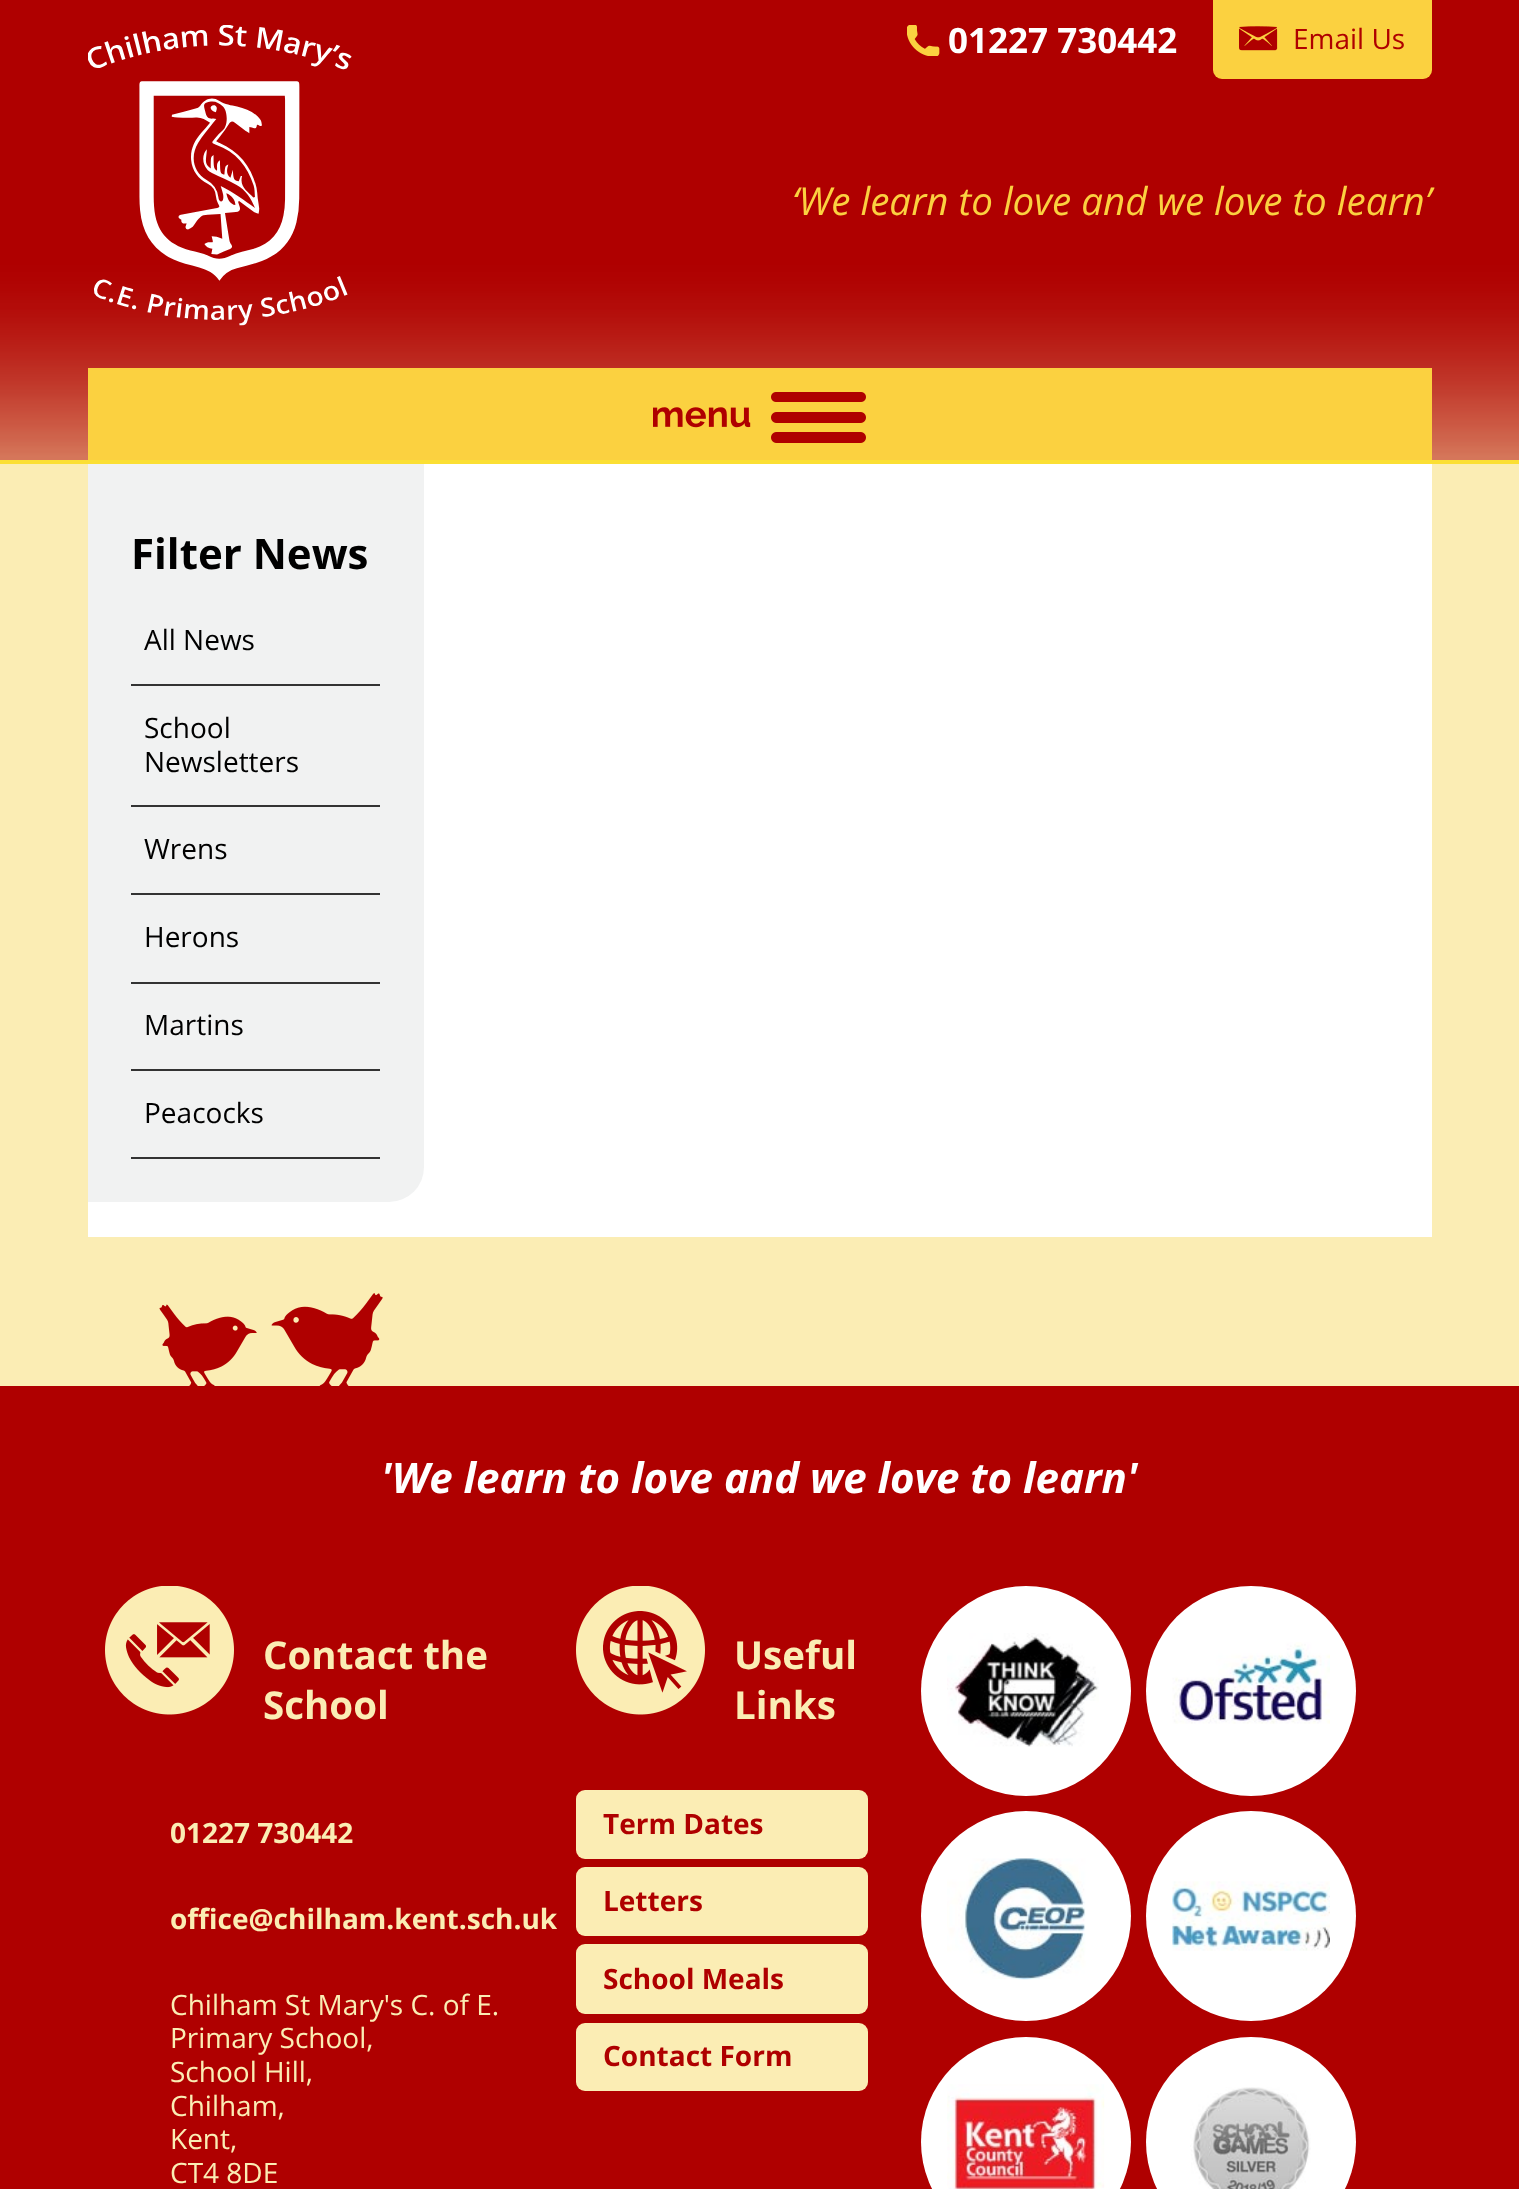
async function draw(canvas) {
  canvas.width = 1519;
  canvas.height = 2189;
  const ctx = canvas.getContext('2d');
  ctx.miterLimit = 4;
  ctx.fontKerning = 'normal';
  function label(s, x, y, font, color) {
    ctx.font = font;
    ctx.fillStyle = color;
    ctx.fillText(s, x, y);
  }
  function rect(x, y, w, h, color) {
    ctx.fillStyle = color;
    ctx.fillRect(x, y, w, h);
  }
  function roundedRect(x, y, w, h, r, color) {
    ctx.fillStyle = color;
    ctx.beginPath();
    ctx.roundRect(x, y, w, h, r);
    ctx.fill();
  }
  async function image(src, x, y, w, h) {
    const img = new Image();
    img.src = src;
    await img.decode();
    ctx.drawImage(img, x, y, w, h);
  }

  rect(0, 0, 1519, 2189, '#fbedb4');
  await image('assets/img1.png', 0, 0, 1519, 460);
  rect(0, 460, 1519, 4, '#fbdf34');
  await image('assets/img2.png', 88, 25, 264, 301);
  await image('assets/img3.png', 907, 25, 33, 31);
  label('01227 730442', 948, 53, 'bold 35px Open Sans', '#fff');
  ctx.fillStyle = '#fbd140';
  ctx.beginPath();
  ctx.roundRect(1213, 0, 219, 79, [0, 0, 9, 9]);
  ctx.fill();
  await image('assets/img4.png', 1239, 26, 39, 25);
  label('Email Us', 1293, 49, '28px Open Sans', '#af0000');
  label('‘We learn to love and we love to learn’', 792, 215, 'italic 38.5px Open Sans', '#fbd140');
  rect(88, 368, 1344, 92, '#fbd140');
  await image('assets/img5.png', 653, 392, 213, 51);
  rect(88, 464, 1344, 773, '#fff');
  ctx.fillStyle = '#f1f2f2';
  ctx.beginPath();
  ctx.roundRect(88, 464, 336, 738, [0, 0, 35, 0]);
  ctx.fill();
  label('Filter News', 131, 569, 'bold 42px Open Sans', '#000');
  rect(131, 684, 249, 2, '#333');
  label('All News', 144, 650, '28px Open Sans', '#000');
  rect(131, 805, 249, 2, '#333');
  label('School', 144, 738, '28px Open Sans', '#000');
  label('Newsletters', 144, 772, '28px Open Sans', '#000');
  rect(131, 893, 249, 2, '#333');
  label('Wrens', 144, 859, '28px Open Sans', '#000');
  rect(131, 982, 249, 2, '#333');
  label('Herons', 144, 947, '28px Open Sans', '#000');
  rect(131, 1069, 249, 2, '#333');
  label('Martins', 144, 1035, '28px Open Sans', '#000');
  rect(131, 1157, 249, 2, '#333');
  label('Peacocks', 144, 1123, '28px Open Sans', '#000');
  await image('assets/img6.png', 159, 1293, 224, 93);
  rect(0, 1386, 1519, 803, '#af0000');
  label('\'We learn to love and we love to learn\'', 381, 1493, 'italic bold 42px Open Sans', '#fff');
  await image('assets/img7.png', 105, 1586, 129, 129);
  label('Contact the', 263, 1669, 'bold 38.5px Open Sans', '#fbedb4');
  label('School', 263, 1719, 'bold 38.5px Open Sans', '#fbedb4');
  label('01227 730442', 170, 1843, 'bold 28px Open Sans', '#fbedb4');
  label('office@chilham.kent.sch.uk', 170, 1929, 'bold 28px Open Sans', '#fbedb4');
  label('Chilham St Mary\'s C. of E.', 170, 2015, '28px Open Sans', '#fbedb4');
  label('Primary School,', 170, 2048, '28px Open Sans', '#fbedb4');
  label('School Hill,', 170, 2082, '28px Open Sans', '#fbedb4');
  label('Chilham,', 170, 2116, '28px Open Sans', '#fbedb4');
  label('Kent,', 170, 2149, '28px Open Sans', '#fbedb4');
  label('CT4 8DE', 170, 2183, '28px Open Sans', '#fbedb4');
  await image('assets/img8.png', 576, 1586, 129, 129);
  label('Useful', 734, 1669, 'bold 38.5px Open Sans', '#fbedb4');
  label('Links', 734, 1719, 'bold 38.5px Open Sans', '#fbedb4');
  roundedRect(576, 1790, 292, 69, 9, '#fbedb4');
  label('Term Dates', 603, 1834, 'bold 28px Open Sans', '#af0000');
  roundedRect(576, 1867, 292, 69, 9, '#fbedb4');
  label('Letters', 603, 1911, 'bold 28px Open Sans', '#af0000');
  roundedRect(576, 1944, 292, 70, 9, '#fbedb4');
  label('School Meals', 603, 1989, 'bold 28px Open Sans', '#af0000');
  roundedRect(576, 2023, 292, 68, 9, '#fbedb4');
  label('Contact Form', 603, 2066, 'bold 28px Open Sans', '#af0000');
  ctx.fillStyle = '#fff';
  ctx.beginPath();
  ctx.arc(1026, 1691, 105, 0, 2 * Math.PI);
  ctx.fill();
  await image('assets/img9.png', 947, 1633, 152, 114);
  ctx.beginPath();
  ctx.arc(1251, 1691, 105, 0, 2 * Math.PI);
  ctx.fill();
  await image('assets/img10.png', 1172, 1642, 158, 82);
  ctx.beginPath();
  ctx.arc(1026, 1916, 105, 0, 2 * Math.PI);
  ctx.fill();
  await image('assets/img11.png', 947, 1858, 139, 122);
  ctx.beginPath();
  ctx.arc(1251, 1916, 105, 0, 2 * Math.PI);
  ctx.fill();
  await image('assets/img12.png', 1172, 1881, 158, 70);
  ctx.beginPath();
  ctx.arc(1026, 2142, 105, 0, 2 * Math.PI);
  ctx.fill();
  await image('assets/img13.png', 947, 2084, 158, 105);
  ctx.beginPath();
  ctx.arc(1251, 2142, 105, 0, 2 * Math.PI);
  ctx.fill();
  await image('assets/img14.png', 1190, 2087, 121, 102);
}

draw(document.querySelector('canvas'));
